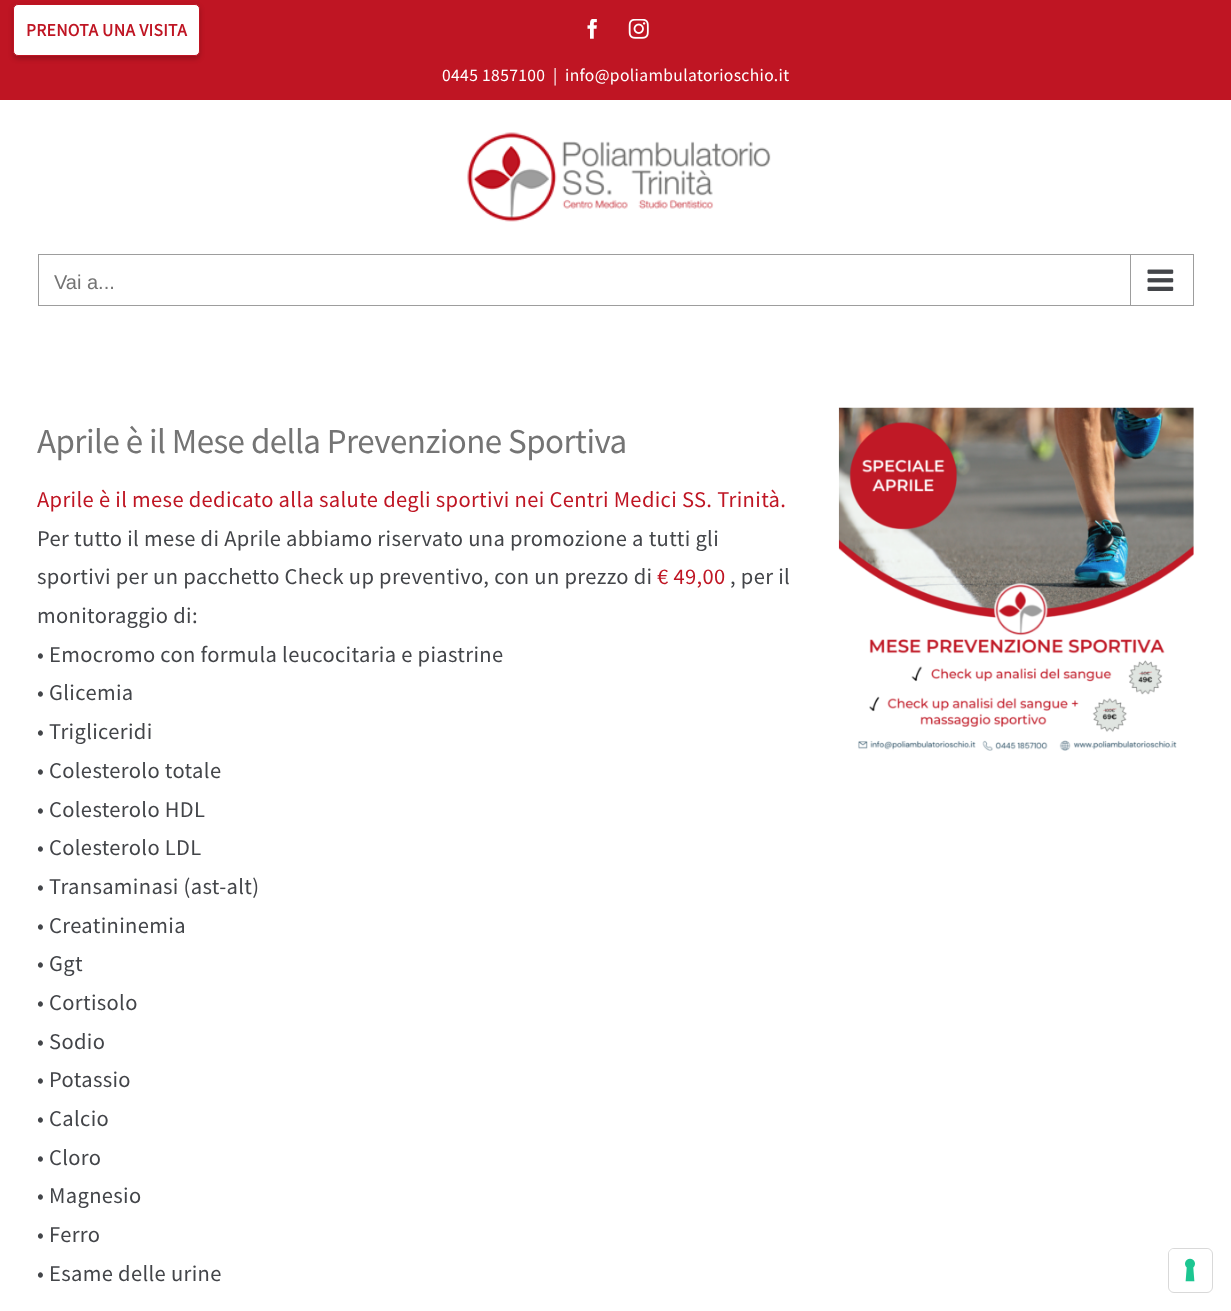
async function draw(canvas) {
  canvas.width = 1231;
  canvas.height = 1311;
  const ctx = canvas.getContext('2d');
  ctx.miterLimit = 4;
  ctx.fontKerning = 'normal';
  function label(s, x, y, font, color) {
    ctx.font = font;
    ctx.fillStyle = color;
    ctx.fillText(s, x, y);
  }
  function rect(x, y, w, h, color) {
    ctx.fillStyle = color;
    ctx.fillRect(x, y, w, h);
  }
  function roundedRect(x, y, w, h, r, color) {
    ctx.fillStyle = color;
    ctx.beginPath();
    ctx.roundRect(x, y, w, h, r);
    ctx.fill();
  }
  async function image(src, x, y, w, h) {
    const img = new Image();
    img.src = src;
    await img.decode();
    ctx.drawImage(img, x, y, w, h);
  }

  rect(0, 0, 1231, 1311, '#fff');
  rect(0, 0, 1231, 100, '#bf1523');
  ctx.fillStyle = '#00000033';
  ctx.filter = 'blur(2.5px)';
  ctx.beginPath();
  ctx.roundRect(13, 6, 187, 53, 5);
  ctx.fill();
  ctx.filter = 'none';
  ctx.fillStyle = '#fff';
  ctx.beginPath();
  ctx.roundRect(13.5, 4.5, 186, 51, 4.5);
  ctx.fill();
  ctx.strokeStyle = '#c01423';
  ctx.stroke();
  ctx.letterSpacing = '0.35px';
  label('PRENOTA UNA VISITA', 26, 36, 'bold 17.5px Source Sans Pro', '#bf1523');
  await image('assets/img1.png', 587, 19, 10, 20);
  await image('assets/img2.png', 628, 19, 21, 20);
  label('0445 1857100', 442, 81, '17.5px Source Sans Pro', '#fff');
  label('|', 553, 81, '17.5px Source Sans Pro', '#fff');
  label('info@poliambulatorioschio.it', 565, 81, '17.5px Source Sans Pro', '#fff');
  await image('assets/img3.png', 467, 132, 304, 90);
  ctx.strokeStyle = '#9d9d9d';
  ctx.strokeRect(38.5, 254.5, 1155, 51);
  ctx.letterSpacing = '0px';
  label('Vai a...', 54, 289, '20px Liberation Sans', '#747474');
  rect(1130, 255, 1, 50, '#9d9d9d');
  await image('assets/img4.png', 1147, 269, 27, 22);
  ctx.letterSpacing = '-0.55px';
  label('Aprile è il Mese della Prevenzione Sportiva', 37, 453, '35px Source Sans Pro', '#747474');
  ctx.letterSpacing = '0.35px';
  label('Aprile è il mese dedicato alla salute degli sportivi nei Centri Medici SS. Trinità.', 37, 507, '22.5px Source Sans Pro', '#bf1523');
  label('Per tutto il mese di Aprile abbiamo riservato una promozione a tutti gli', 37, 546, '22.5px Source Sans Pro', '#434549');
  label('sportivi per un pacchetto Check up preventivo, con un prezzo di', 37, 584, '22.5px Source Sans Pro', '#434549');
  label('€ 49,00', 657, 584, '22.5px Source Sans Pro', '#bf1523');
  label(', per il', 730, 584, '22.5px Source Sans Pro', '#434549');
  label('monitoraggio di:', 37, 623, '22.5px Source Sans Pro', '#434549');
  label('• Emocromo con formula leucocitaria e piastrine', 37, 662, '22.5px Source Sans Pro', '#434549');
  label('• Glicemia', 37, 700, '22.5px Source Sans Pro', '#434549');
  label('• Trigliceridi', 37, 739, '22.5px Source Sans Pro', '#434549');
  label('• Colesterolo totale', 37, 778, '22.5px Source Sans Pro', '#434549');
  label('• Colesterolo HDL', 37, 817, '22.5px Source Sans Pro', '#434549');
  label('• Colesterolo LDL', 37, 855, '22.5px Source Sans Pro', '#434549');
  label('• Transaminasi (ast-alt)', 37, 894, '22.5px Source Sans Pro', '#434549');
  label('• Creatininemia', 37, 933, '22.5px Source Sans Pro', '#434549');
  label('• Ggt', 37, 971, '22.5px Source Sans Pro', '#434549');
  label('• Cortisolo', 37, 1010, '22.5px Source Sans Pro', '#434549');
  label('• Sodio', 37, 1049, '22.5px Source Sans Pro', '#434549');
  label('• Potassio', 37, 1087, '22.5px Source Sans Pro', '#434549');
  label('• Calcio', 37, 1126, '22.5px Source Sans Pro', '#434549');
  label('• Cloro', 37, 1165, '22.5px Source Sans Pro', '#434549');
  label('• Magnesio', 37, 1203, '22.5px Source Sans Pro', '#434549');
  label('• Ferro', 37, 1242, '22.5px Source Sans Pro', '#434549');
  label('• Esame delle urine', 37, 1281, '22.5px Source Sans Pro', '#434549');
  await image('assets/img5.png', 838, 407, 356, 344);
  ctx.beginPath();
  ctx.roundRect(1168.5, 1248.5, 44, 44, 5.5);
  ctx.strokeStyle = '#d9d9d9';
  ctx.stroke();
  roundedRect(1169, 1249, 42, 42, 5, '#fff');
  await image('assets/img6.png', 1185, 1258, 10, 24);
}

draw(document.querySelector('canvas'));
